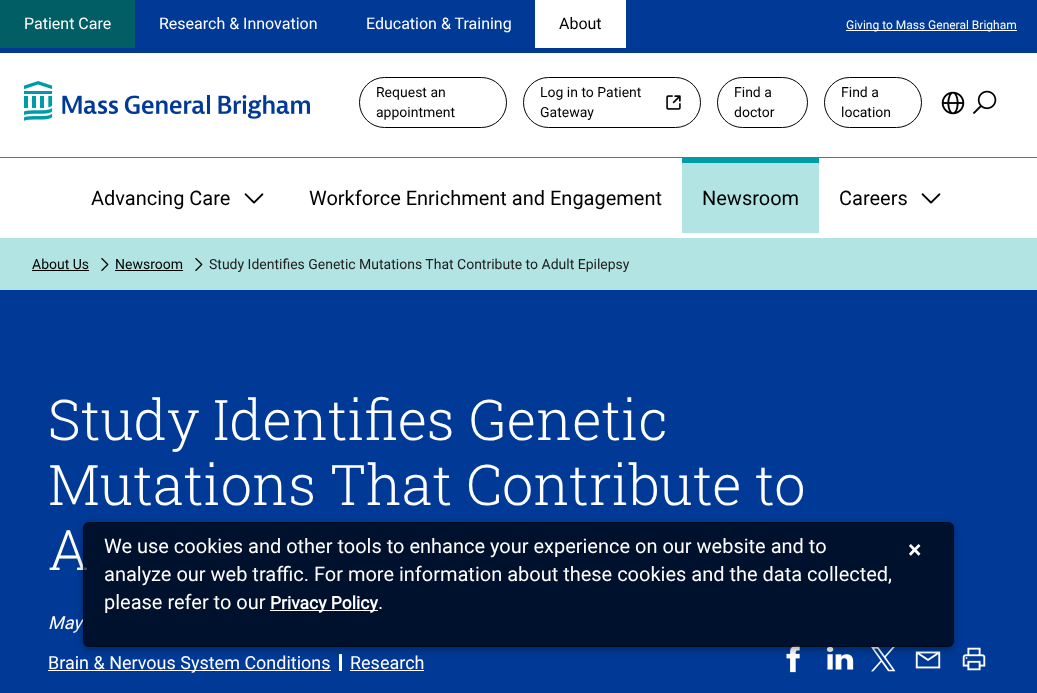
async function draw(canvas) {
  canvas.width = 1037;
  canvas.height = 693;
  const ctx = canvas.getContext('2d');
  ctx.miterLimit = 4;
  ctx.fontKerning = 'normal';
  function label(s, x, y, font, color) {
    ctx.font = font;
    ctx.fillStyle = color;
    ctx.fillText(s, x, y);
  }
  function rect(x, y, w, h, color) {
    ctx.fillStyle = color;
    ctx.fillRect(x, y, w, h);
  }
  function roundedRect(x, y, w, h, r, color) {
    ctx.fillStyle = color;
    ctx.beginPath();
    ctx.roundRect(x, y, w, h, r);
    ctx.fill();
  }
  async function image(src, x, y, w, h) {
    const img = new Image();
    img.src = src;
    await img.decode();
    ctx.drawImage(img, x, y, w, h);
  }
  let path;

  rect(0, 0, 1037, 693, '#fff');
  rect(0, 0, 1037, 53, '#003a96');
  rect(0, 0, 135, 48, '#005e64');
  label('Patient Care', 24, 29, '16px Roboto', '#fff');
  label('Research & Innovation', 159, 29, '16px Roboto', '#fff');
  label('Education & Training', 366, 29, '16px Roboto', '#fff');
  rect(535, 0, 91, 48, '#fff');
  label('About', 559, 29, '16px Roboto', '#000');
  rect(846, 30, 171, 1, '#fff');
  label('Giving to Mass General Brigham', 846, 29, '12px Roboto', '#fff');
  rect(0, 157, 1037, 1, '#707070');
  await image('assets/img1.png', 24, 81, 286, 40);
  ctx.beginPath();
  ctx.roundRect(359.5, 77.5, 147, 50, 25);
  ctx.strokeStyle = '#000';
  ctx.stroke();
  label('Request an', 376, 97, '14px Roboto', '#000');
  label('appointment', 376, 117, '14px Roboto', '#000');
  ctx.beginPath();
  ctx.roundRect(523.5, 77.5, 177, 50, 25);
  ctx.stroke();
  label('Log in to Patient', 540, 97, '14px Roboto', '#000');
  await image('assets/img2.png', 666, 95, 15, 15);
  label('Gateway', 540, 117, '14px Roboto', '#000');
  ctx.beginPath();
  ctx.roundRect(717.5, 77.5, 90, 50, 25);
  ctx.stroke();
  label('Find a', 734, 97, '14px Roboto', '#000');
  label('doctor', 734, 117, '14px Roboto', '#000');
  ctx.beginPath();
  ctx.roundRect(824.5, 77.5, 97, 50, 25);
  ctx.stroke();
  label('Find a', 841, 97, '14px Roboto', '#000');
  label('location', 841, 117, '14px Roboto', '#000');
  await image('assets/img3.png', 941, 91, 24, 24);
  await image('assets/img4.png', 972, 90, 25, 24);
  label('Advancing Care', 91, 205, '20px Roboto', '#000');
  await image('assets/img5.png', 244, 193, 20, 11);
  label('Workforce Enrichment and Engagement', 309, 205, '20px Roboto', '#000');
  rect(682, 163, 137, 70, '#b1e4e3');
  rect(682, 158, 137, 5, '#009ca6');
  label('Newsroom', 702, 205, '20px Roboto', '#000');
  label('Careers', 839, 205, '20px Roboto', '#000');
  await image('assets/img5.png', 921, 193, 20, 11);
  rect(0, 238, 1037, 52, '#b1e4e3');
  label('About Us', 32, 269, '14px Roboto', '#000');
  rect(32, 270, 57, 1, '#000');
  await image('assets/img6.png', 101, 258, 8, 13);
  label('Newsroom', 115, 269, '14px Roboto', '#000');
  rect(115, 270, 68, 1, '#000');
  await image('assets/img6.png', 195, 258, 8, 13);
  label('Study Identifies Genetic Mutations That Contribute to Adult Epilepsy', 209, 269, '14px Roboto', '#202020');
  rect(0, 290, 1037, 403, '#003a96');
  label('Study Identifies Genetic', 48, 440, '300 56px Roboto Slab', '#fff');
  label('Mutations That Contribute to', 48, 505, '300 56px Roboto Slab', '#fff');
  label('A', 48, 570, '300 56px Roboto Slab', '#fff');
  label('May', 48, 629, 'italic 18px Roboto', '#fff');
  rect(48, 670, 283, 1, '#fff');
  label('Brain & Nervous System Conditions', 48, 669, '18px Roboto', '#fff');
  rect(339, 654, 3, 17, '#fff');
  label('Research', 350, 669, '18px Roboto', '#fff');
  rect(350, 670, 74, 1, '#fff');
  await image('assets/img7.png', 786, 645, 14, 28);
  await image('assets/img8.png', 826, 646, 28, 24);
  await image('assets/img9.png', 871, 647, 25, 25);
  await image('assets/img10.png', 915, 651, 26, 18);
  await image('assets/img11.png', 962, 647, 24, 24);
  ctx.save();
  path = new Path2D('M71 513H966V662H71ZM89 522H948C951.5 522 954 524.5 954 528V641C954 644.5 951.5 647 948 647H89C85.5 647 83 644.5 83 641V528C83 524.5 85.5 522 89 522Z');
  ctx.clip(path, 'evenodd');
  ctx.fillStyle = '#0000004d';
  ctx.filter = 'blur(3.5px)';
  ctx.beginPath();
  ctx.roundRect(83, 525, 871, 125, 6);
  ctx.fill();
  ctx.filter = 'none';
  ctx.restore();
  roundedRect(83, 522, 871, 125, 6, '#000000b3');
  ctx.beginPath();
  ctx.roundRect(83.5, 522.5, 870, 124, 5.5);
  ctx.strokeStyle = '#00000066';
  ctx.stroke();
  label('We use cookies and other tools to enhance your experience on our website and to', 104, 553, '20px Roboto', '#fff');
  label('analyze our web traffic. For more information about these cookies and the data collected,', 104, 581, '20px Roboto', '#fff');
  label('please refer to our', 104, 609, '20px Roboto', '#fff');
  rect(270, 610, 108, 1, '#fefefe');
  label('Privacy Policy', 270, 609, 'bold 17.5px Roboto', '#fff');
  label('.', 378, 609, '20px Roboto', '#fff');
  label('×', 908, 558, 'bold 24px Roboto', '#fff');
}

draw(document.querySelector('canvas'));
